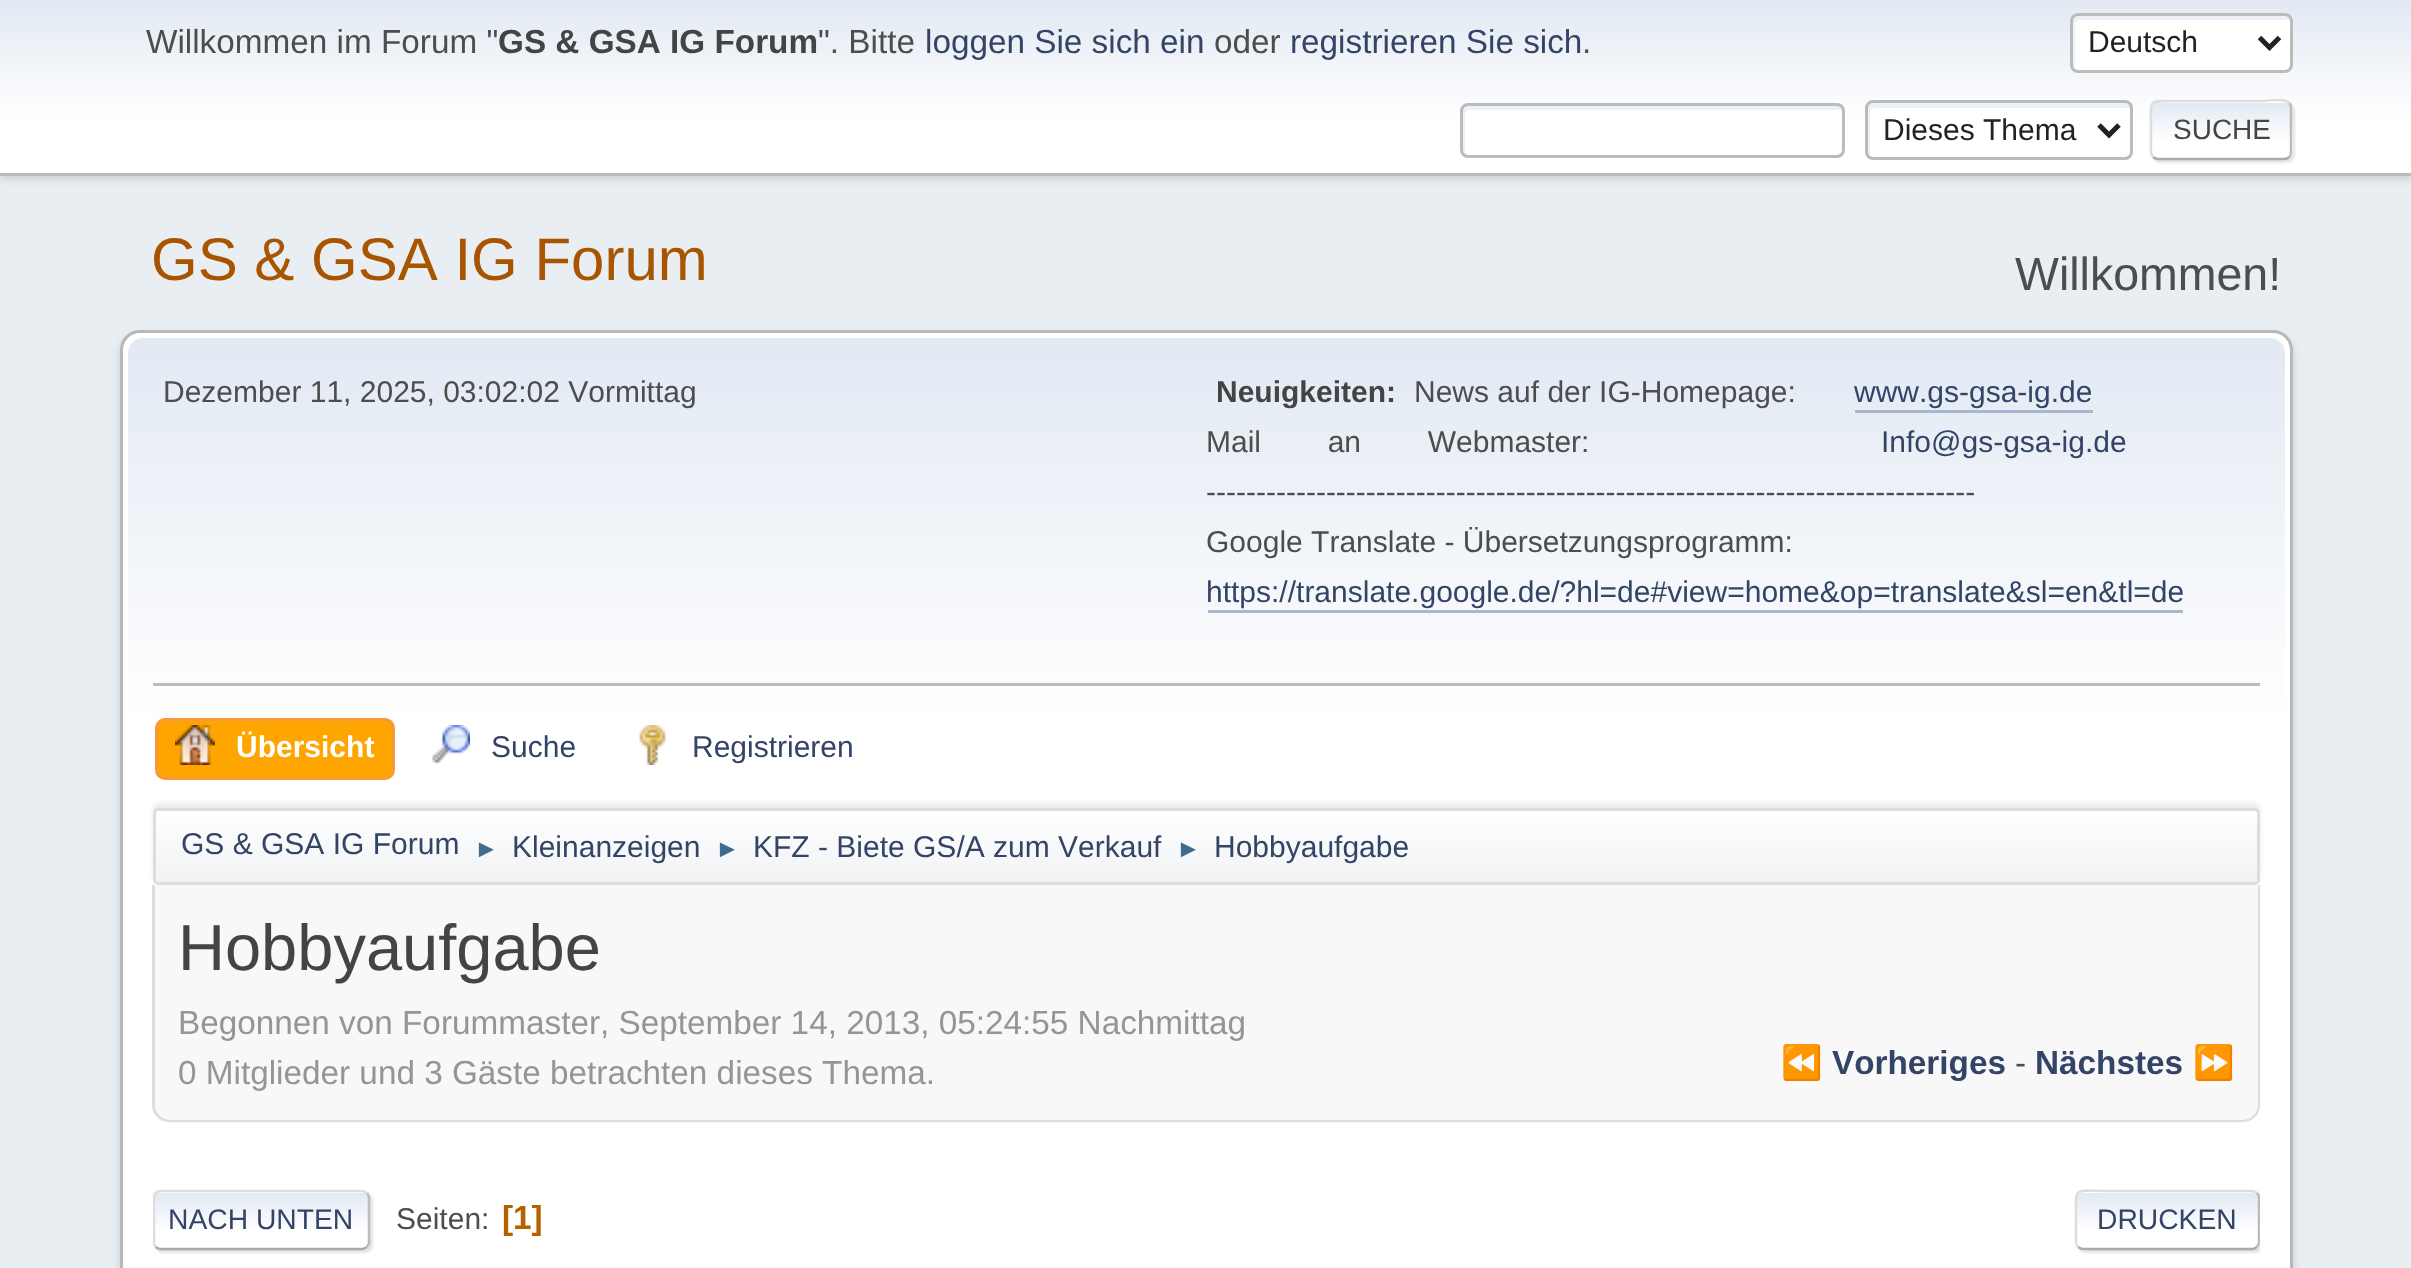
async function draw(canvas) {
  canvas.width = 2411;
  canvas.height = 1268;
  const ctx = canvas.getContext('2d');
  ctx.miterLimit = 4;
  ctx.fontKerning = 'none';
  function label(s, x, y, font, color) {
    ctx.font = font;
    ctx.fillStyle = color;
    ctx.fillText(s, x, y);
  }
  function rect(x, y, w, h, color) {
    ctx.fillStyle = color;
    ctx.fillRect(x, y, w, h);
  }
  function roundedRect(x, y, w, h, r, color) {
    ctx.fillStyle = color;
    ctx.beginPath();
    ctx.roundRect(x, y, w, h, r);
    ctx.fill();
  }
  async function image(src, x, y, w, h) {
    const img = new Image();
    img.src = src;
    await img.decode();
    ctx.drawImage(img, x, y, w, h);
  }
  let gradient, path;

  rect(0, 0, 2411, 1268, '#e9eef2');
  ctx.fillStyle = '#00000029';
  ctx.filter = 'blur(5px)';
  ctx.beginPath();
  ctx.rect(0, 3, 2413, 175);
  ctx.fill();
  ctx.filter = 'none';
  gradient = ctx.createLinearGradient(1206, 0, 1206, 173);
  gradient.addColorStop(0, '#e2e9f3');
  gradient.addColorStop(0.7, '#fff');
  ctx.fillStyle = gradient;
  ctx.fillRect(0, 0, 2411, 173);
  rect(0, 173, 2411, 3, '#bbb');
  label('Willkommen im Forum "', 146, 53, '33.3px Liberation Sans', '#4d4d4d');
  label('GS & GSA IG Forum', 498, 53, 'bold 33.3px Liberation Sans', '#444');
  label('". Bitte', 818, 53, '33.3px Liberation Sans', '#4d4d4d');
  label('loggen Sie sich ein', 925, 53, '33.3px Liberation Sans', '#346');
  label('oder', 1214, 53, '33.3px Liberation Sans', '#4d4d4d');
  label('registrieren Sie sich', 1290, 53, '33.3px Liberation Sans', '#346');
  label('.', 1582, 53, '33.3px Liberation Sans', '#4d4d4d');
  roundedRect(2070, 13, 223, 60, 8, '#fff');
  ctx.fillStyle = '#ecf1f8';
  path = new Path2D('M2080 20H2288L2290 21V20C2290 17 2288 15 2285 15H2078C2075 15 2073 17 2073 20V65C2073 67 2074 68 2075 69V25C2075 22 2077 20 2080 20Z');
  ctx.fill(path);
  ctx.beginPath();
  ctx.roundRect(2071.5, 14.5, 220, 57, 6.5);
  ctx.strokeStyle = '#bbb';
  ctx.lineWidth = 3;
  ctx.stroke();
  path = new Path2D('M2259.5 37.5L2269.5 47.5L2279.5 37.5');
  ctx.strokeStyle = '#222';
  ctx.lineWidth = 5;
  ctx.stroke(path);
  label('Deutsch', 2088, 52, '30px Liberation Sans', '#222');
  roundedRect(1460, 103, 385, 55, 8, '#fff');
  ctx.fillStyle = '#ecf1f8';
  path = new Path2D('M1470 110H1840L1843 111V110C1843 107 1841 105 1838 105H1468C1465 105 1463 107 1463 110V150C1463 152 1464 153 1465 154V115C1465 112 1467 110 1470 110Z');
  ctx.fill(path);
  ctx.beginPath();
  ctx.roundRect(1461.5, 104.5, 382, 52, 6.5);
  ctx.strokeStyle = '#bbb';
  ctx.lineWidth = 3;
  ctx.stroke();
  roundedRect(1865, 100, 268, 60, 8, '#fff');
  ctx.fillStyle = '#ecf1f8';
  path = new Path2D('M1875 108H2128L2130 109V108C2130 105 2128 103 2125 103H1873C1870 103 1868 105 1868 108V153C1868 155 1869 156 1870 157V112C1870 110 1872 108 1875 108Z');
  ctx.fill(path);
  ctx.beginPath();
  ctx.roundRect(1866.5, 101.5, 265, 57, 6.5);
  ctx.stroke();
  path = new Path2D('M2099 125L2109 135L2119 125');
  ctx.strokeStyle = '#222';
  ctx.lineWidth = 5;
  ctx.stroke(path);
  label('Dieses Thema', 1883, 140, '30px Liberation Sans', '#222');
  ctx.fillStyle = '#0000001a';
  ctx.filter = 'blur(1px)';
  ctx.beginPath();
  ctx.roundRect(2153, 103, 142, 60, 8);
  ctx.fill();
  ctx.filter = 'none';
  roundedRect(2150, 100, 143, 60, 8, '#fff');
  ctx.save();
  ctx.beginPath();
  ctx.roundRect(2150, 100, 143, 60, 8);
  ctx.clip();
  gradient = ctx.createLinearGradient(2221, 103, 2221, 158);
  gradient.addColorStop(0, '#e2e9f3');
  gradient.addColorStop(0.7, '#fff');
  ctx.fillStyle = gradient;
  ctx.fillRect(2150, 103, 143, 55);
  gradient = ctx.createLinearGradient(2221, 158, 2221, 213);
  gradient.addColorStop(0, '#e2e9f3');
  gradient.addColorStop(0.7, '#fff');
  ctx.fillStyle = gradient;
  ctx.fillRect(2150, 158, 143, 2);
  ctx.restore();
  path = new Path2D('M2289.5 103C2290.5 104.5 2291 106 2291 107.5V152.5C2291 154 2290.5 155.5 2289.5 157');
  ctx.strokeStyle = '#bbb';
  ctx.lineWidth = 2.5;
  ctx.stroke(path);
  path = new Path2D('M2289.5 157C2288 158 2286.5 159 2285 159H2157.5C2156 159 2154.5 158 2153 157');
  ctx.strokeStyle = '#aaa';
  ctx.stroke(path);
  path = new Path2D('M2153 157C2150 154 2151 148.5 2151 145V130C2151 97.5 2146 101 2179 101H2264C2264 101 2284.5 98 2289.5 103');
  ctx.strokeStyle = '#ddd';
  ctx.stroke(path);
  label('SUCHE', 2173, 139, '28px Liberation Sans', '#444');
  label('GS & GSA IG Forum', 151, 280, '60px Liberation Sans', '#a85400');
  label('Willkommen!', 2015, 290, '46.5px Liberation Sans', '#4d4d4d');
  ctx.fillStyle = '#00000024';
  ctx.filter = 'blur(4px)';
  ctx.beginPath();
  ctx.roundRect(120, 335, 2173, 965, 20);
  ctx.fill();
  ctx.filter = 'none';
  ctx.fillStyle = '#fff';
  ctx.beginPath();
  ctx.roundRect(121.5, 331.5, 2170, 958, 18.5);
  ctx.fill();
  ctx.strokeStyle = '#b8b8b8';
  ctx.lineWidth = 3;
  ctx.stroke();
  gradient = ctx.createLinearGradient(1206, 337, 1206, 890);
  gradient.addColorStop(0, '#e2e9f3');
  gradient.addColorStop(0.7, '#fff');
  ctx.fillStyle = gradient;
  ctx.beginPath();
  ctx.roundRect(128, 338, 2157, 552, [15, 15, 0, 0]);
  ctx.fill();
  label('Dezember 11, 2025, 03:02:02 Vormittag', 163, 402, '30px Liberation Sans', '#4d4d4d');
  label('Neuigkeiten:', 1216, 402, 'bold 30px Liberation Sans', '#444');
  label('News auf der IG-Homepage:', 1414, 402, '30px Liberation Sans', '#4d4d4d');
  label('www.gs-gsa-ig.de', 1854, 402, '30px Liberation Sans', '#346');
  rect(1855, 410, 238, 3, '#a8b6cf');
  label('Mail        an        Webmaster:', 1206, 452, '30px Liberation Sans', '#4d4d4d');
  label('Info@gs-gsa-ig.de', 1881, 452, '30px Liberation Sans', '#346');
  label('-----------------------------------------------------------------------------', 1206, 502, '30px Liberation Sans', '#4d4d4d');
  label('Google Translate - Übersetzungsprogramm:', 1206, 552, '30px Liberation Sans', '#4d4d4d');
  label('https://translate.google.de/?hl=de#view=home&op=translate&sl=en&tl=de', 1206, 602, '30px Liberation Sans', '#346');
  rect(1208, 610, 975, 3, '#a8b6cf');
  rect(153, 686, 2107, 2, '#fff');
  rect(153, 683, 2107, 3, '#bbb');
  ctx.fillStyle = '#ffa500';
  ctx.beginPath();
  ctx.roundRect(156.5, 719.5, 237, 59, 8.5);
  ctx.fill();
  ctx.strokeStyle = '#f49a3a';
  ctx.stroke();
  await image('assets/img1.png', 175, 725, 40, 40);
  label('Übersicht', 236, 757, 'bold 30px Liberation Sans', '#fff');
  await image('assets/img2.png', 431, 725, 39, 39);
  label('Suche', 491, 757, '30px Liberation Sans', '#346');
  await image('assets/img3.png', 639, 725, 27, 40);
  label('Registrieren', 692, 757, '30px Liberation Sans', '#346');
  ctx.fillStyle = '#00000014';
  ctx.filter = 'blur(2.5px)';
  ctx.beginPath();
  ctx.roundRect(153, 803, 2107, 77, 5);
  ctx.fill();
  ctx.filter = 'none';
  ctx.save();
  ctx.beginPath();
  ctx.roundRect(153, 808, 2107, 77, 5);
  ctx.clip();
  gradient = ctx.createLinearGradient(1206, 810, 1206, 883);
  gradient.addColorStop(0, '#fff');
  gradient.addColorStop(0.95, '#f1f3f5');
  ctx.fillStyle = gradient;
  ctx.fillRect(153, 810, 2107, 73);
  ctx.restore();
  ctx.beginPath();
  ctx.roundRect(154.5, 809.5, 2104, 74, 3.5);
  ctx.strokeStyle = '#ddd';
  ctx.stroke();
  label('GS & GSA IG Forum', 181, 854, '30px Liberation Sans', '#346');
  label('►', 474, 857, '25px Liberation Sans', '#3f6b8c');
  label('Kleinanzeigen', 512, 857, '30px Liberation Sans', '#346');
  label('►', 715, 857, '25px Liberation Sans', '#3f6b8c');
  label('KFZ - Biete GS/A zum Verkauf', 753, 857, '30px Liberation Sans', '#346');
  label('►', 1176, 857, '25px Liberation Sans', '#3f6b8c');
  label('Hobbyaufgabe', 1214, 857, '30px Liberation Sans', '#346');
  ctx.fillStyle = '#f8f8f8';
  ctx.beginPath();
  ctx.roundRect(153, 885, 2107, 238, [0, 0, 18, 18]);
  ctx.fill();
  ctx.fillStyle = '#ddd';
  path = new Path2D('M152 885H2260V1105C2260 1115 2252 1122 2242 1122H170C160 1122 152 1115 152 1105ZM155 885H2258V1105C2258 1113 2251 1120 2242 1120H170C162 1120 155 1113 155 1105Z');
  ctx.fill(path, 'evenodd');
  label('Hobbyaufgabe', 178, 970, '65px Liberation Sans', '#444');
  label('Begonnen von Forummaster, September 14, 2013, 05:24:55 Nachmittag', 178, 1034, '33.3px Liberation Sans', '#959595');
  label('0 Mitglieder und 3 Gäste betrachten dieses Thema.', 178, 1084, '33.3px Liberation Sans', '#959595');
  label('⏪', 1781, 1074, 'bold 33.3px Noto Color Emoji', '#346');
  label('Vorheriges', 1832, 1074, 'bold 33.3px Liberation Sans', '#346');
  label('-', 2015, 1074, '33.3px Liberation Sans', '#4d4d4d');
  label('Nächstes', 2035, 1074, 'bold 33.3px Liberation Sans', '#346');
  label('⏩', 2193, 1074, 'bold 33.3px Noto Color Emoji', '#346');
  ctx.fillStyle = '#0000001a';
  ctx.filter = 'blur(1px)';
  ctx.beginPath();
  ctx.roundRect(155, 1193, 218, 60, 8);
  ctx.fill();
  ctx.filter = 'none';
  roundedRect(153, 1190, 217, 60, 8, '#fff');
  ctx.save();
  ctx.beginPath();
  ctx.roundRect(153, 1190, 217, 60, 8);
  ctx.clip();
  gradient = ctx.createLinearGradient(261, 1193, 261, 1248);
  gradient.addColorStop(0, '#e2e9f3');
  gradient.addColorStop(0.7, '#fff');
  ctx.fillStyle = gradient;
  ctx.fillRect(153, 1193, 217, 55);
  ctx.restore();
  path = new Path2D('M367 1193C368 1194.5 369 1196 369 1197.5V1242.5C369 1244 368 1245.5 367 1247');
  ctx.strokeStyle = '#bbb';
  ctx.lineWidth = 2.5;
  ctx.stroke(path);
  path = new Path2D('M367 1247C365.5 1248 364 1249 362.5 1249H160C158.5 1249 157 1248 155.5 1247');
  ctx.strokeStyle = '#aaa';
  ctx.stroke(path);
  ctx.save();
  ctx.beginPath();
  ctx.rect(153, 1160, 2107, 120);
  ctx.clip();
  path = new Path2D('M155.5 1247C154.5 1245.5 154 1244 154 1242.5V1197.5C154 1196 154.5 1194.5 155.5 1193C157 1192 158.5 1191 160 1191H362.5C364 1191 365.5 1192 367 1193');
  ctx.strokeStyle = '#ddd';
  ctx.stroke(path);
  ctx.restore();
  label('NACH UNTEN', 168, 1229, '28.25px Liberation Sans', '#346');
  label('Seiten:', 396, 1229, '30px Liberation Sans', '#4d4d4d');
  label('[1]', 502, 1229, 'bold 33.3px Liberation Sans', '#b46100');
  ctx.save();
  ctx.beginPath();
  ctx.rect(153, 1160, 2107, 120);
  ctx.clip();
  ctx.fillStyle = '#0000001a';
  ctx.filter = 'blur(1px)';
  ctx.beginPath();
  ctx.roundRect(2078, 1193, 185, 60, 8);
  ctx.fill();
  ctx.filter = 'none';
  ctx.restore();
  roundedRect(2075, 1190, 185, 60, 8, '#fff');
  ctx.save();
  ctx.beginPath();
  ctx.roundRect(2075, 1190, 185, 60, 8);
  ctx.clip();
  gradient = ctx.createLinearGradient(2168, 1193, 2168, 1248);
  gradient.addColorStop(0, '#e2e9f3');
  gradient.addColorStop(0.7, '#fff');
  ctx.fillStyle = gradient;
  ctx.fillRect(2075, 1193, 185, 55);
  ctx.restore();
  ctx.save();
  ctx.beginPath();
  ctx.rect(153, 1160, 2107, 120);
  ctx.clip();
  path = new Path2D('M2257 1193C2258 1194.5 2259 1196 2259 1197.5V1242.5C2259 1244 2258 1245.5 2257 1247');
  ctx.strokeStyle = '#bbb';
  ctx.stroke(path);
  ctx.restore();
  path = new Path2D('M2257 1247C2255.5 1248 2254 1249 2252.5 1249H2082.5C2081 1249 2079.5 1248 2078 1247');
  ctx.stroke(path);
  path = new Path2D('M2078 1247C2075 1244 2076 1238.5 2076 1235V1220C2076 1184.5 2071.5 1191 2111 1191H2252.5C2254 1191.5 2256 1192 2257 1193');
  ctx.strokeStyle = '#ddd';
  ctx.stroke(path);
  label('DRUCKEN', 2097, 1229, '28.25px Liberation Sans', '#346');
}

draw(document.querySelector('canvas'));
